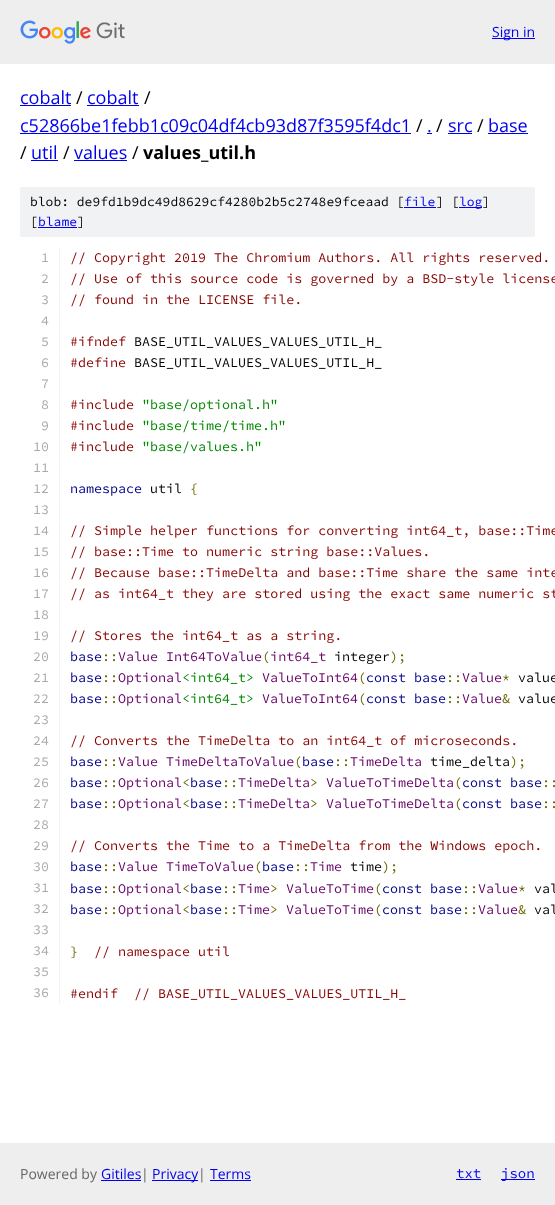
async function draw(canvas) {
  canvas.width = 555;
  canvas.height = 1205;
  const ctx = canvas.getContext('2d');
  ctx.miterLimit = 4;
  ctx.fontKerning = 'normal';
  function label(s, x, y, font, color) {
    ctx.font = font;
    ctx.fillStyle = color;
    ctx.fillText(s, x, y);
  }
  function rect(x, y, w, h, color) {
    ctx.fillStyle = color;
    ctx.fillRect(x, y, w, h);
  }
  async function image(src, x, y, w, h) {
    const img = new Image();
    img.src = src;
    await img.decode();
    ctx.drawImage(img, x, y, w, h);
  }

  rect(0, 0, 555, 1205, '#fff');
  rect(0, 0, 555, 64, '#eee');
  await image('assets/img1.png', 20, 20, 105, 24);
  rect(492, 38, 43, 1, '#00e');
  label('Sign in', 492, 37, '14px Open Sans', '#00e');
  label('cobalt', 20, 104, '18px Open Sans', '#00e');
  rect(20, 105, 51, 1, '#00e');
  label('/', 76, 104, '18px Open Sans', '#000');
  label('cobalt', 87, 104, '18px Open Sans', '#00e');
  rect(87, 105, 52, 1, '#00e');
  label('/', 144, 104, '18px Open Sans', '#000');
  label('c52866be1febb1c09c04df4cb93d87f3595f4dc1', 20, 132, '18px Open Sans', '#00e');
  rect(20, 133, 391, 1, '#00e');
  label('/', 416, 132, '18px Open Sans', '#000');
  label('.', 427, 132, '18px Open Sans', '#00e');
  rect(427, 133, 5, 1, '#00e');
  label('/', 436, 132, '18px Open Sans', '#000');
  label('src', 448, 132, '18px Open Sans', '#00e');
  rect(448, 133, 24, 1, '#00e');
  label('/', 477, 132, '18px Open Sans', '#000');
  label('base', 488, 132, '18px Open Sans', '#00e');
  rect(488, 133, 40, 1, '#00e');
  label('/', 20, 159, '18px Open Sans', '#000');
  label('util', 31, 159, '18px Open Sans', '#00e');
  rect(31, 160, 27, 1, '#00e');
  label('/', 63, 159, '18px Open Sans', '#000');
  label('values', 74, 159, '18px Open Sans', '#00e');
  rect(74, 160, 53, 1, '#00e');
  label('/', 132, 159, '18px Open Sans', '#000');
  label('values_util.h', 143, 159, 'bold 18px Open Sans', '#000');
  rect(20, 187, 515, 50, '#f1f2f3');
  label('blob: de9fd1b9dc49d8629cf4280b2b5c2748e9fceaad [', 30, 206, '200 13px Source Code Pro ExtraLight', '#000');
  label('file', 404, 206, '200 13px Source Code Pro ExtraLight', '#00e');
  rect(404, 207, 32, 1, '#00e');
  label('] [', 436, 206, '200 13px Source Code Pro ExtraLight', '#000');
  rect(459, 207, 23, 1, '#00e');
  label('log', 459, 206, '200 13px Source Code Pro ExtraLight', '#00e');
  label(']', 482, 206, '200 13px Source Code Pro ExtraLight', '#000');
  label('[', 30, 226, '200 13px Source Code Pro ExtraLight', '#000');
  label('blame', 38, 226, '200 13px Source Code Pro ExtraLight', '#00e');
  rect(38, 227, 39, 1, '#00e');
  label(']', 77, 226, '200 13px Source Code Pro ExtraLight', '#000');
  rect(59, 248, 1, 20, '#f1f2f3');
  label('1', 41, 262, '200 13.35px Source Code Pro ExtraLight', '#aaa');
  label('// Copyright 2019 The Chromium Authors. All rights reserved.', 70, 262, '200 13.35px Source Code Pro ExtraLight', '#800');
  rect(59, 269, 1, 20, '#f1f2f3');
  label('2', 41, 283, '200 13.35px Source Code Pro ExtraLight', '#aaa');
  label('// Use of this source code is governed by a BSD-style license', 70, 283, '200 13.35px Source Code Pro ExtraLight', '#800');
  rect(59, 290, 1, 20, '#f1f2f3');
  label('3', 41, 304, '200 13.35px Source Code Pro ExtraLight', '#aaa');
  label('// found in the LICENSE file.', 70, 304, '200 13.35px Source Code Pro ExtraLight', '#800');
  rect(59, 311, 1, 20, '#f1f2f3');
  label('4', 41, 325, '200 13.35px Source Code Pro ExtraLight', '#aaa');
  rect(59, 332, 1, 20, '#f1f2f3');
  label('5', 41, 346, '200 13.35px Source Code Pro ExtraLight', '#aaa');
  label('#ifndef', 70, 346, '200 13.35px Source Code Pro ExtraLight', '#800');
  label('BASE_UTIL_VALUES_VALUES_UTIL_H_', 134, 346, '200 13.35px Source Code Pro ExtraLight', '#000');
  rect(59, 353, 1, 20, '#f1f2f3');
  label('6', 41, 367, '200 13.35px Source Code Pro ExtraLight', '#aaa');
  label('#define', 70, 367, '200 13.35px Source Code Pro ExtraLight', '#800');
  label('BASE_UTIL_VALUES_VALUES_UTIL_H_', 134, 367, '200 13.35px Source Code Pro ExtraLight', '#000');
  rect(59, 374, 1, 20, '#f1f2f3');
  label('7', 41, 388, '200 13.35px Source Code Pro ExtraLight', '#aaa');
  rect(59, 395, 1, 20, '#f1f2f3');
  label('8', 41, 409, '200 13.35px Source Code Pro ExtraLight', '#aaa');
  label('#include', 70, 409, '200 13.35px Source Code Pro ExtraLight', '#800');
  label('"base/optional.h"', 142, 409, '200 13.35px Source Code Pro ExtraLight', '#080');
  rect(59, 416, 1, 20, '#f1f2f3');
  label('9', 41, 430, '200 13.35px Source Code Pro ExtraLight', '#aaa');
  label('#include', 70, 430, '200 13.35px Source Code Pro ExtraLight', '#800');
  label('"base/time/time.h"', 142, 430, '200 13.35px Source Code Pro ExtraLight', '#080');
  rect(59, 437, 1, 20, '#f1f2f3');
  label('10', 33, 451, '200 13.35px Source Code Pro ExtraLight', '#aaa');
  label('#include', 70, 451, '200 13.35px Source Code Pro ExtraLight', '#800');
  label('"base/values.h"', 142, 451, '200 13.35px Source Code Pro ExtraLight', '#080');
  rect(59, 458, 1, 20, '#f1f2f3');
  label('11', 33, 472, '200 13.35px Source Code Pro ExtraLight', '#aaa');
  rect(59, 479, 1, 20, '#f1f2f3');
  label('12', 33, 493, '200 13.35px Source Code Pro ExtraLight', '#aaa');
  label('namespace', 70, 493, '200 13.35px Source Code Pro ExtraLight', '#008');
  label('util', 150, 493, '200 13.35px Source Code Pro ExtraLight', '#000');
  label('{', 190, 493, '200 13.35px Source Code Pro ExtraLight', '#660');
  rect(59, 500, 1, 20, '#f1f2f3');
  label('13', 33, 514, '200 13.35px Source Code Pro ExtraLight', '#aaa');
  rect(59, 521, 1, 20, '#f1f2f3');
  label('14', 33, 535, '200 13.35px Source Code Pro ExtraLight', '#aaa');
  label('// Simple helper functions for converting int64_t, base::Time', 70, 535, '200 13.35px Source Code Pro ExtraLight', '#800');
  rect(59, 542, 1, 20, '#f1f2f3');
  label('15', 33, 556, '200 13.35px Source Code Pro ExtraLight', '#aaa');
  label('// base::Time to numeric string base::Values.', 70, 556, '200 13.35px Source Code Pro ExtraLight', '#800');
  rect(59, 563, 1, 20, '#f1f2f3');
  label('16', 33, 577, '200 13.35px Source Code Pro ExtraLight', '#aaa');
  label('// Because base::TimeDelta and base::Time share the same inte', 70, 577, '200 13.35px Source Code Pro ExtraLight', '#800');
  rect(59, 584, 1, 20, '#f1f2f3');
  label('17', 33, 598, '200 13.35px Source Code Pro ExtraLight', '#aaa');
  label('// as int64_t they are stored using the exact same numeric st', 70, 598, '200 13.35px Source Code Pro ExtraLight', '#800');
  rect(59, 605, 1, 20, '#f1f2f3');
  label('18', 33, 619, '200 13.35px Source Code Pro ExtraLight', '#aaa');
  rect(59, 626, 1, 20, '#f1f2f3');
  label('19', 33, 640, '200 13.35px Source Code Pro ExtraLight', '#aaa');
  label('// Stores the int64_t as a string.', 70, 640, '200 13.35px Source Code Pro ExtraLight', '#800');
  rect(59, 647, 1, 357, '#f1f2f3');
  label('20', 33, 661, '200 13.35px Source Code Pro ExtraLight', '#aaa');
  label('base', 70, 661, '200 13.35px Source Code Pro ExtraLight', '#008');
  label('Value Int64ToValue int64_t', 118, 661, '200 13.35px Source Code Pro ExtraLight', '#606');
  label('::', 102, 661, '200 13.35px Source Code Pro ExtraLight', '#660');
  label('(', 262, 661, '200 13.35px Source Code Pro ExtraLight', '#660');
  label('integer', 334, 661, '200 13.35px Source Code Pro ExtraLight', '#000');
  label(');', 390, 661, '200 13.35px Source Code Pro ExtraLight', '#660');
  label('21', 33, 682, '200 13.35px Source Code Pro ExtraLight', '#aaa');
  label('base', 70, 682, '200 13.35px Source Code Pro ExtraLight', '#008');
  label('::', 102, 682, '200 13.35px Source Code Pro ExtraLight', '#660');
  label('Optional', 118, 682, '200 13.35px Source Code Pro ExtraLight', '#606');
  label('<int64_t>', 182, 682, '200 13.35px Source Code Pro ExtraLight', '#080');
  label('ValueToInt64', 262, 682, '200 13.35px Source Code Pro ExtraLight', '#606');
  label('(', 358, 682, '200 13.35px Source Code Pro ExtraLight', '#660');
  label('const base', 366, 682, '200 13.35px Source Code Pro ExtraLight', '#008');
  label('::', 446, 682, '200 13.35px Source Code Pro ExtraLight', '#660');
  label('Value', 462, 682, '200 13.35px Source Code Pro ExtraLight', '#606');
  label('*', 502, 682, '200 13.35px Source Code Pro ExtraLight', '#660');
  label('value', 518, 682, '200 13.35px Source Code Pro ExtraLight', '#000');
  label('22', 33, 703, '200 13.35px Source Code Pro ExtraLight', '#aaa');
  label('base', 70, 703, '200 13.35px Source Code Pro ExtraLight', '#008');
  label('::', 102, 703, '200 13.35px Source Code Pro ExtraLight', '#660');
  label('Optional', 118, 703, '200 13.35px Source Code Pro ExtraLight', '#606');
  label('<int64_t>', 182, 703, '200 13.35px Source Code Pro ExtraLight', '#080');
  label('ValueToInt64', 262, 703, '200 13.35px Source Code Pro ExtraLight', '#606');
  label('(', 358, 703, '200 13.35px Source Code Pro ExtraLight', '#660');
  label('const base', 366, 703, '200 13.35px Source Code Pro ExtraLight', '#008');
  label('::', 446, 703, '200 13.35px Source Code Pro ExtraLight', '#660');
  label('Value', 462, 703, '200 13.35px Source Code Pro ExtraLight', '#606');
  label('&', 502, 703, '200 13.35px Source Code Pro ExtraLight', '#660');
  label('value', 518, 703, '200 13.35px Source Code Pro ExtraLight', '#000');
  label('23', 33, 724, '200 13.35px Source Code Pro ExtraLight', '#aaa');
  label('24', 33, 745, '200 13.35px Source Code Pro ExtraLight', '#aaa');
  label('// Converts the TimeDelta to an int64_t of microseconds.', 70, 745, '200 13.35px Source Code Pro ExtraLight', '#800');
  label('25', 33, 766, '200 13.35px Source Code Pro ExtraLight', '#aaa');
  label('base', 70, 766, '200 13.35px Source Code Pro ExtraLight', '#008');
  label('::', 102, 766, '200 13.35px Source Code Pro ExtraLight', '#660');
  label('Value TimeDeltaToValue', 118, 766, '200 13.35px Source Code Pro ExtraLight', '#606');
  label('(', 294, 766, '200 13.35px Source Code Pro ExtraLight', '#660');
  label('base', 302, 766, '200 13.35px Source Code Pro ExtraLight', '#008');
  label('::', 334, 766, '200 13.35px Source Code Pro ExtraLight', '#660');
  label('TimeDelta', 350, 766, '200 13.35px Source Code Pro ExtraLight', '#606');
  label('time_delta', 430, 766, '200 13.35px Source Code Pro ExtraLight', '#000');
  label(');', 510, 766, '200 13.35px Source Code Pro ExtraLight', '#660');
  label('26', 33, 787, '200 13.35px Source Code Pro ExtraLight', '#aaa');
  label('base', 70, 787, '200 13.35px Source Code Pro ExtraLight', '#008');
  label('::', 102, 787, '200 13.35px Source Code Pro ExtraLight', '#660');
  label('Optional', 118, 787, '200 13.35px Source Code Pro ExtraLight', '#606');
  label('<', 182, 787, '200 13.35px Source Code Pro ExtraLight', '#660');
  label('base', 190, 787, '200 13.35px Source Code Pro ExtraLight', '#008');
  label('::', 222, 787, '200 13.35px Source Code Pro ExtraLight', '#660');
  label('TimeDelta', 238, 787, '200 13.35px Source Code Pro ExtraLight', '#606');
  label('>', 310, 787, '200 13.35px Source Code Pro ExtraLight', '#660');
  label('ValueToTimeDelta', 326, 787, '200 13.35px Source Code Pro ExtraLight', '#606');
  label('(', 454, 787, '200 13.35px Source Code Pro ExtraLight', '#660');
  label('const base', 462, 787, '200 13.35px Source Code Pro ExtraLight', '#008');
  label('::', 542, 787, '200 13.35px Source Code Pro ExtraLight', '#660');
  label('27', 33, 808, '200 13.35px Source Code Pro ExtraLight', '#aaa');
  label('base', 70, 808, '200 13.35px Source Code Pro ExtraLight', '#008');
  label('::', 102, 808, '200 13.35px Source Code Pro ExtraLight', '#660');
  label('Optional', 118, 808, '200 13.35px Source Code Pro ExtraLight', '#606');
  label('<', 182, 808, '200 13.35px Source Code Pro ExtraLight', '#660');
  label('base', 190, 808, '200 13.35px Source Code Pro ExtraLight', '#008');
  label('::', 222, 808, '200 13.35px Source Code Pro ExtraLight', '#660');
  label('TimeDelta', 238, 808, '200 13.35px Source Code Pro ExtraLight', '#606');
  label('>', 310, 808, '200 13.35px Source Code Pro ExtraLight', '#660');
  label('ValueToTimeDelta', 326, 808, '200 13.35px Source Code Pro ExtraLight', '#606');
  label('(', 454, 808, '200 13.35px Source Code Pro ExtraLight', '#660');
  label('const base', 462, 808, '200 13.35px Source Code Pro ExtraLight', '#008');
  label('::', 542, 808, '200 13.35px Source Code Pro ExtraLight', '#660');
  label('28', 33, 829, '200 13.35px Source Code Pro ExtraLight', '#aaa');
  label('29', 33, 850, '200 13.35px Source Code Pro ExtraLight', '#aaa');
  label('// Converts the Time to a TimeDelta from the Windows epoch.', 70, 850, '200 13.35px Source Code Pro ExtraLight', '#800');
  label('30', 33, 871, '200 13.35px Source Code Pro ExtraLight', '#aaa');
  label('base', 70, 871, '200 13.35px Source Code Pro ExtraLight', '#008');
  label('::', 102, 871, '200 13.35px Source Code Pro ExtraLight', '#660');
  label('Value TimeToValue', 118, 871, '200 13.35px Source Code Pro ExtraLight', '#606');
  label('(', 254, 871, '200 13.35px Source Code Pro ExtraLight', '#660');
  label('base', 262, 871, '200 13.35px Source Code Pro ExtraLight', '#008');
  label('::', 294, 871, '200 13.35px Source Code Pro ExtraLight', '#660');
  label('Time', 310, 871, '200 13.35px Source Code Pro ExtraLight', '#606');
  label('time', 350, 871, '200 13.35px Source Code Pro ExtraLight', '#000');
  label(');', 382, 871, '200 13.35px Source Code Pro ExtraLight', '#660');
  label('31', 33, 892, '200 13.35px Source Code Pro ExtraLight', '#aaa');
  label('base', 70, 893, '200 13.35px Source Code Pro ExtraLight', '#008');
  label('::', 102, 893, '200 13.35px Source Code Pro ExtraLight', '#660');
  label('Optional', 118, 893, '200 13.35px Source Code Pro ExtraLight', '#606');
  label('<', 182, 893, '200 13.35px Source Code Pro ExtraLight', '#660');
  label('base', 190, 893, '200 13.35px Source Code Pro ExtraLight', '#008');
  label('::', 222, 893, '200 13.35px Source Code Pro ExtraLight', '#660');
  label('Time', 238, 893, '200 13.35px Source Code Pro ExtraLight', '#606');
  label('>', 270, 893, '200 13.35px Source Code Pro ExtraLight', '#660');
  label('ValueToTime', 286, 893, '200 13.35px Source Code Pro ExtraLight', '#606');
  label('(', 374, 893, '200 13.35px Source Code Pro ExtraLight', '#660');
  label('const base', 382, 893, '200 13.35px Source Code Pro ExtraLight', '#008');
  label('::', 462, 893, '200 13.35px Source Code Pro ExtraLight', '#660');
  label('Value', 478, 893, '200 13.35px Source Code Pro ExtraLight', '#606');
  label('*', 518, 893, '200 13.35px Source Code Pro ExtraLight', '#660');
  label('val', 534, 893, '200 13.35px Source Code Pro ExtraLight', '#000');
  label('32', 33, 913, '200 13.35px Source Code Pro ExtraLight', '#aaa');
  label('base', 70, 914, '200 13.35px Source Code Pro ExtraLight', '#008');
  label('::', 102, 914, '200 13.35px Source Code Pro ExtraLight', '#660');
  label('Optional', 118, 914, '200 13.35px Source Code Pro ExtraLight', '#606');
  label('<', 182, 914, '200 13.35px Source Code Pro ExtraLight', '#660');
  label('base', 190, 914, '200 13.35px Source Code Pro ExtraLight', '#008');
  label('::', 222, 914, '200 13.35px Source Code Pro ExtraLight', '#660');
  label('Time', 238, 914, '200 13.35px Source Code Pro ExtraLight', '#606');
  label('>', 270, 914, '200 13.35px Source Code Pro ExtraLight', '#660');
  label('ValueToTime', 286, 914, '200 13.35px Source Code Pro ExtraLight', '#606');
  label('(', 374, 914, '200 13.35px Source Code Pro ExtraLight', '#660');
  label('const base', 382, 914, '200 13.35px Source Code Pro ExtraLight', '#008');
  label('::', 462, 914, '200 13.35px Source Code Pro ExtraLight', '#660');
  label('Value', 478, 914, '200 13.35px Source Code Pro ExtraLight', '#606');
  label('&', 518, 914, '200 13.35px Source Code Pro ExtraLight', '#660');
  label('val', 534, 914, '200 13.35px Source Code Pro ExtraLight', '#000');
  label('33', 33, 934, '200 13.35px Source Code Pro ExtraLight', '#aaa');
  label('34', 33, 955, '200 13.35px Source Code Pro ExtraLight', '#aaa');
  label('}', 70, 956, '200 13.35px Source Code Pro ExtraLight', '#660');
  label('// namespace util', 94, 956, '200 13.35px Source Code Pro ExtraLight', '#800');
  label('35', 33, 976, '200 13.35px Source Code Pro ExtraLight', '#aaa');
  label('36', 33, 997, '200 13.35px Source Code Pro ExtraLight', '#aaa');
  label('#endif', 70, 998, '200 13.35px Source Code Pro ExtraLight', '#800');
  label('// BASE_UTIL_VALUES_VALUES_UTIL_H_', 134, 998, '200 13.35px Source Code Pro ExtraLight', '#800');
  rect(0, 1143, 555, 62, '#eee');
  label('Powered by', 20, 1179, '14px Open Sans', '#666');
  label('Gitiles', 101, 1179, '14px Open Sans', '#00e');
  rect(101, 1180, 40, 1, '#00e');
  label('|', 141, 1179, '14px Open Sans', '#666');
  rect(152, 1180, 46, 1, '#00e');
  label('Privacy', 152, 1179, '14px Open Sans', '#00e');
  label('|', 198, 1179, '14px Open Sans', '#666');
  label('Terms', 210, 1179, '14px Open Sans', '#00e');
  rect(210, 1180, 41, 1, '#00e');
  label('txt', 456, 1178, '200 14px Source Code Pro ExtraLight', '#00e');
  rect(456, 1179, 25, 1, '#00e');
  rect(501, 1179, 34, 1, '#00e');
  label('json', 501, 1178, '200 14px Source Code Pro ExtraLight', '#00e');
}

draw(document.querySelector('canvas'));
